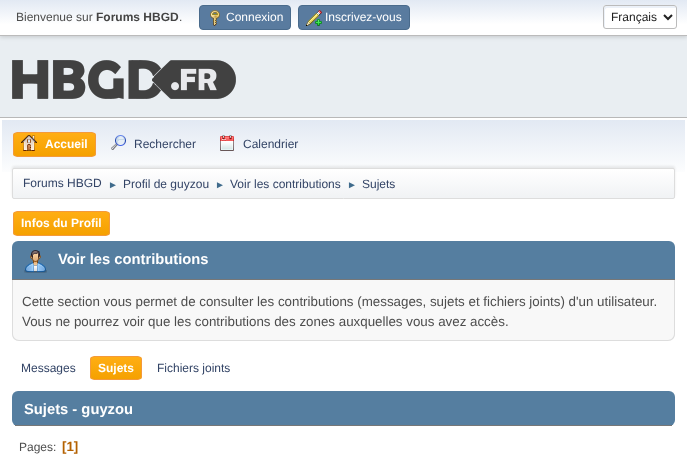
async function draw(canvas) {
  canvas.width = 687;
  canvas.height = 463;
  const ctx = canvas.getContext('2d');
  ctx.miterLimit = 4;
  ctx.fontKerning = 'normal';
  function label(s, x, y, font, color) {
    ctx.font = font;
    ctx.fillStyle = color;
    ctx.fillText(s, x, y);
  }
  function rect(x, y, w, h, color) {
    ctx.fillStyle = color;
    ctx.fillRect(x, y, w, h);
  }
  function roundedRect(x, y, w, h, r, color) {
    ctx.fillStyle = color;
    ctx.beginPath();
    ctx.roundRect(x, y, w, h, r);
    ctx.fill();
  }
  async function image(src, x, y, w, h) {
    const img = new Image();
    img.src = src;
    await img.decode();
    ctx.drawImage(img, x, y, w, h);
  }
  let gradient, path;

  rect(0, 0, 687, 463, '#e9eef2');
  ctx.fillStyle = '#00000029';
  ctx.filter = 'blur(2px)';
  ctx.beginPath();
  ctx.rect(0, 1, 687, 36);
  ctx.fill();
  ctx.filter = 'none';
  gradient = ctx.createLinearGradient(344, 0, 344, 35);
  gradient.addColorStop(0, '#e2e9f3');
  gradient.addColorStop(0.7, '#fff');
  ctx.fillStyle = gradient;
  ctx.fillRect(0, 0, 687, 35);
  rect(0, 35, 687, 1, '#bbb');
  label('Bienvenue sur', 16, 21, '12px Liberation Sans', '#4d4d4d');
  label('Forums HBGD', 96, 21, 'bold 12px Liberation Sans', '#444');
  label('.', 179, 21, '12px Liberation Sans', '#4d4d4d');
  ctx.fillStyle = '#597b9f';
  ctx.beginPath();
  ctx.roundRect(199.5, 5.5, 91, 24, 3.5);
  ctx.fill();
  ctx.strokeStyle = '#4a6b8c';
  ctx.stroke();
  await image('assets/img1.png', 210, 10, 10, 16);
  label('Connexion', 226, 21, '12px Liberation Sans', '#fff');
  ctx.fillStyle = '#597b9f';
  ctx.beginPath();
  ctx.roundRect(298.5, 5.5, 111, 24, 3.5);
  ctx.fill();
  ctx.stroke();
  await image('assets/img2.png', 306, 10, 16, 16);
  label('Inscrivez-vous', 325, 21, '12px Liberation Sans', '#fff');
  roundedRect(603, 5, 74, 24, 3, '#fff');
  ctx.fillStyle = '#ecf1f8';
  path = new Path2D('M607 8H676C676 4 667 6 663 6H617C602 6 604 3 604 17C604 19 603 27 605 28V10C605 9 606 8 607 8Z');
  ctx.fill(path);
  ctx.beginPath();
  ctx.roundRect(603.5, 5.5, 73, 23, 2.5);
  ctx.strokeStyle = '#bbb';
  ctx.stroke();
  path = new Path2D('M664 15L668 19L672 15');
  ctx.strokeStyle = '#222';
  ctx.lineWidth = 2;
  ctx.stroke(path);
  label('Français', 611, 21, '12px Liberation Sans', '#222');
  await image('assets/img3.png', 12, 60, 224, 39);
  rect(0, 118, 687, 345, '#fff');
  rect(0, 117, 687, 1, '#b8b8b8');
  gradient = ctx.createLinearGradient(344, 120, 344, 201);
  gradient.addColorStop(0, '#e2e9f3');
  gradient.addColorStop(0.7, '#fff');
  ctx.fillStyle = gradient;
  ctx.fillRect(2, 120, 683, 52);
  ctx.save();
  ctx.beginPath();
  ctx.roundRect(13, 132, 83, 25, 4);
  ctx.clip();
  gradient = ctx.createLinearGradient(55, 133, 55, 156);
  gradient.addColorStop(0, '#ffae14');
  gradient.addColorStop(1, '#f5a100');
  ctx.fillStyle = gradient;
  ctx.fillRect(13, 133, 83, 23);
  ctx.restore();
  ctx.beginPath();
  ctx.roundRect(13.5, 132.5, 82, 24, 3.5);
  ctx.strokeStyle = '#f49a3a';
  ctx.lineWidth = 1;
  ctx.stroke();
  await image('assets/img4.png', 21, 135, 16, 16);
  label('Accueil', 45, 148, 'bold 12px Liberation Sans', '#fff');
  await image('assets/img5.png', 111, 135, 15, 15);
  label('Rechercher', 134, 148, '12px Liberation Sans', '#346');
  await image('assets/img6.png', 220, 135, 14, 16);
  label('Calendrier', 243, 148, '12px Liberation Sans', '#346');
  ctx.fillStyle = '#00000014';
  ctx.filter = 'blur(1px)';
  ctx.beginPath();
  ctx.roundRect(12, 166, 663, 31, 2);
  ctx.fill();
  ctx.filter = 'none';
  ctx.save();
  ctx.beginPath();
  ctx.roundRect(12, 168, 663, 31, 2);
  ctx.clip();
  gradient = ctx.createLinearGradient(344, 169, 344, 198);
  gradient.addColorStop(0, '#fff');
  gradient.addColorStop(0.95, '#f1f3f5');
  ctx.fillStyle = gradient;
  ctx.fillRect(12, 169, 663, 29);
  ctx.restore();
  ctx.beginPath();
  ctx.roundRect(12.5, 168.5, 662, 30, 1.5);
  ctx.strokeStyle = '#ddd';
  ctx.stroke();
  label('Forums HBGD', 23, 187, '12px Liberation Sans', '#346');
  label('►', 108, 188, '10px Liberation Sans', '#3f6b8c');
  label('Profil de guyzou', 123, 188, '12px Liberation Sans', '#346');
  label('►', 215, 188, '10px Liberation Sans', '#3f6b8c');
  label('Voir les contributions', 230, 188, '12px Liberation Sans', '#346');
  label('►', 347, 188, '10px Liberation Sans', '#3f6b8c');
  label('Sujets', 362, 188, '12px Liberation Sans', '#346');
  ctx.save();
  ctx.beginPath();
  ctx.roundRect(13, 211, 97, 25, 4);
  ctx.clip();
  gradient = ctx.createLinearGradient(62, 212, 62, 235);
  gradient.addColorStop(0, '#ffae14');
  gradient.addColorStop(1, '#f5a100');
  ctx.fillStyle = gradient;
  ctx.fillRect(13, 212, 97, 23);
  ctx.restore();
  ctx.beginPath();
  ctx.roundRect(13.5, 211.5, 96, 24, 3.5);
  ctx.strokeStyle = '#f49a3a';
  ctx.stroke();
  label('Infos du Profil', 21, 227, 'bold 12px Liberation Sans', '#fff');
  ctx.fillStyle = '#557ea0';
  ctx.beginPath();
  ctx.roundRect(12, 241, 663, 39, [6, 6, 0, 0]);
  ctx.fill();
  rect(12, 279, 663, 1, '#777');
  await image('assets/img7.png', 24, 250, 23, 23);
  label('Voir les contributions', 58, 264, 'bold 14.75px Liberation Sans', '#fff');
  ctx.fillStyle = '#f8f8f8';
  ctx.beginPath();
  ctx.roundRect(12, 280, 663, 61, [0, 0, 7, 7]);
  ctx.fill();
  ctx.fillStyle = '#ddd';
  path = new Path2D('M12 280H675V334C675 338 672 341 668 341H19C15 341 12 338 12 334ZM13 280H674V334C674 337 671 340 668 340H19C16 340 13 337 13 334Z');
  ctx.fill(path, 'evenodd');
  label('Cette section vous permet de consulter les contributions (messages, sujets et fichiers joints) d\'un utilisateur.', 22, 306, '13.35px Liberation Sans', '#4d4d4d');
  label('Vous ne pourrez voir que les contributions des zones auxquelles vous avez accès.', 22, 326, '13.35px Liberation Sans', '#4d4d4d');
  label('Messages', 21, 372, '12px Liberation Sans', '#346');
  ctx.save();
  ctx.beginPath();
  ctx.roundRect(90, 356, 52, 24, 4);
  ctx.clip();
  gradient = ctx.createLinearGradient(116, 357, 116, 379);
  gradient.addColorStop(0, '#ffae14');
  gradient.addColorStop(1, '#f5a100');
  ctx.fillStyle = gradient;
  ctx.fillRect(90, 357, 52, 22);
  ctx.restore();
  ctx.beginPath();
  ctx.roundRect(90.5, 356.5, 51, 23, 3.5);
  ctx.stroke();
  label('Sujets', 98, 372, 'bold 12px Liberation Sans', '#fff');
  label('Fichiers joints', 157, 372, '12px Liberation Sans', '#346');
  roundedRect(12, 391, 663, 35, 6, '#557ea0');
  rect(15, 425, 657, 1, '#777');
  label('Sujets - guyzou', 24, 414, 'bold 14.75px Liberation Sans', '#fff');
  label('Pages:', 19, 451, '12px Liberation Sans', '#4d4d4d');
  label('[1]', 62, 451, 'bold 13.35px Liberation Sans', '#b46100');
}

draw(document.querySelector('canvas'));
